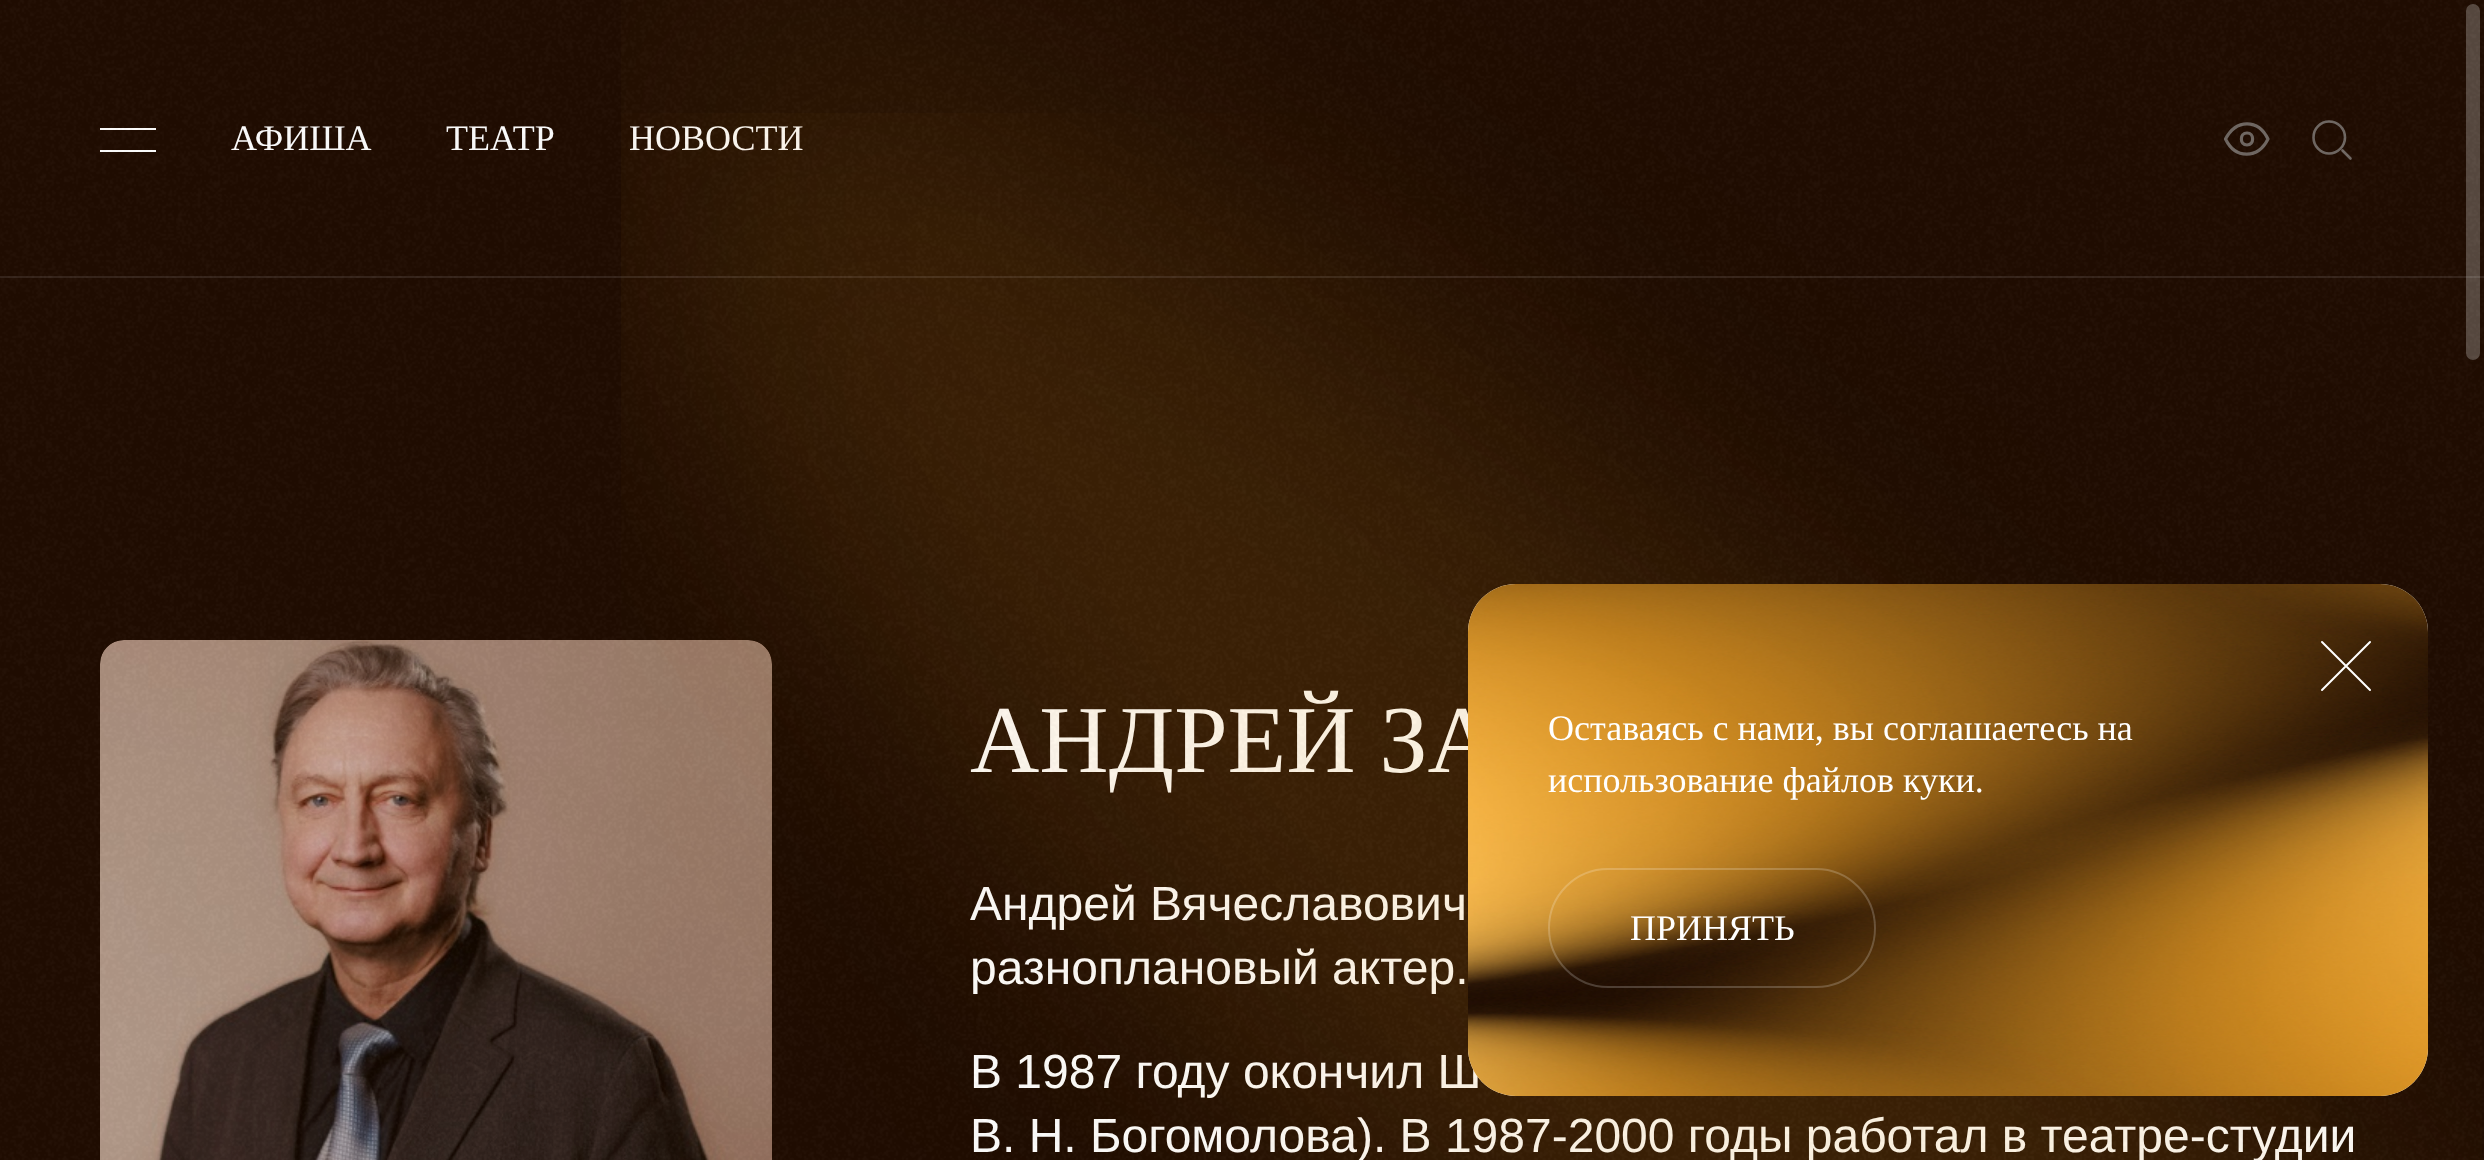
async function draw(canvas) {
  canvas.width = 2484;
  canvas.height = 1160;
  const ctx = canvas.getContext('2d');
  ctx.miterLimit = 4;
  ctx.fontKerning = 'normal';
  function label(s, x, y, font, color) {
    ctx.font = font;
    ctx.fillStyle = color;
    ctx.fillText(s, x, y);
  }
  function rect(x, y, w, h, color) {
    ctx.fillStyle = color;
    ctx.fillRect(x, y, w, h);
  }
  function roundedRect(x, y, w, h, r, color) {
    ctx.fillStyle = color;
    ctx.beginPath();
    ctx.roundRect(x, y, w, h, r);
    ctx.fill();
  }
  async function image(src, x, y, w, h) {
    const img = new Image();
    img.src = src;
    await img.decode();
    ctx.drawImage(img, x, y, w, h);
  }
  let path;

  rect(0, 0, 2484, 1160, '#200d02');
  rect(0, 276, 2484, 2, '#36251b');
  label('НОВОСТИ', 629, 150, '36px Liberation Serif', '#fff');
  path = new Path2D('M2225.5 139C2236 119 2258 118.5 2268 139C2258 159 2235.5 159.5 2225.5 139ZM2247 145C2254.5 145 2254.5 133 2247 133C2239.5 133 2239.5 145 2247 145Z');
  ctx.strokeStyle = '#716964';
  ctx.lineWidth = 3.2;
  ctx.lineCap = 'round';
  ctx.lineJoin = 'round';
  ctx.stroke(path);
  path = new Path2D('M2329 153.5C2338 153.5 2345 146 2345 137.5C2345 128.5 2338 121.5 2329 121.5C2320.5 121.5 2313.5 128.5 2313.5 137.5C2313.5 146 2320.5 153.5 2329 153.5ZM2350.5 158.5L2342.5 150.5');
  ctx.lineWidth = 2.6;
  ctx.stroke(path);
  roundedRect(2466, 4, 14, 356, 7, '#584a41');
  rect(2466, 276, 14, 2, '#695c54');
  await image('assets/img4.png', 100, 640, 672, 520);
  roundedRect(100, 640, 672, 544, 24, '#602d022e');
  label('АНДРЕЙ ЗА', 970, 772, '96px Liberation Serif', '#fff');
  label('Андрей Вячеславович', 970, 920, '48px Liberation Sans', '#fff');
  label('разноплановый актер.', 970, 984, '48px Liberation Sans', '#fff');
  label('В 1987 году окончил Ш', 970, 1088, '48px Liberation Sans', '#fff');
  label('В. Н. Богомолова). В 1987-2000 годы работал в театре-студии', 970, 1152, '48px Liberation Sans', '#fff');
  await image('assets/img2.png', 621, 0, 1861, 1160);
  rect(100, 128, 56, 2, '#fff');
  rect(100, 150, 56, 2, '#fff');
  label('АФИША', 231, 150, '36px Liberation Serif', '#fff');
  label('ТЕАТР', 446, 150, '36px Liberation Serif', '#fff');
  await image('assets/img3.png', 621, 113, 1700, 1047);
  await image('assets/img1.png', 0, 0, 2484, 1160);
  roundedRect(1468, 584, 960, 512, 48, '#fff');
  await image('assets/img5.png', 1468, 584, 960, 512);
  path = new Path2D('M2370 642L2322 690M2322 642L2370 690');
  ctx.strokeStyle = '#fff';
  ctx.lineWidth = 2;
  ctx.stroke(path);
  label('Оставаясь с нами, вы соглашаетесь на', 1548, 740, '36px Liberation Serif', '#fff');
  label('использование файлов куки.', 1548, 792, '36px Liberation Serif', '#fff');
  ctx.beginPath();
  ctx.roundRect(1549, 869, 326, 118, 59);
  ctx.strokeStyle = '#ffffff33';
  ctx.lineJoin = 'miter';
  ctx.stroke();
  label('ПРИНЯТЬ', 1630, 940, '36px Liberation Serif', '#fff');
}

draw(document.querySelector('canvas'));
